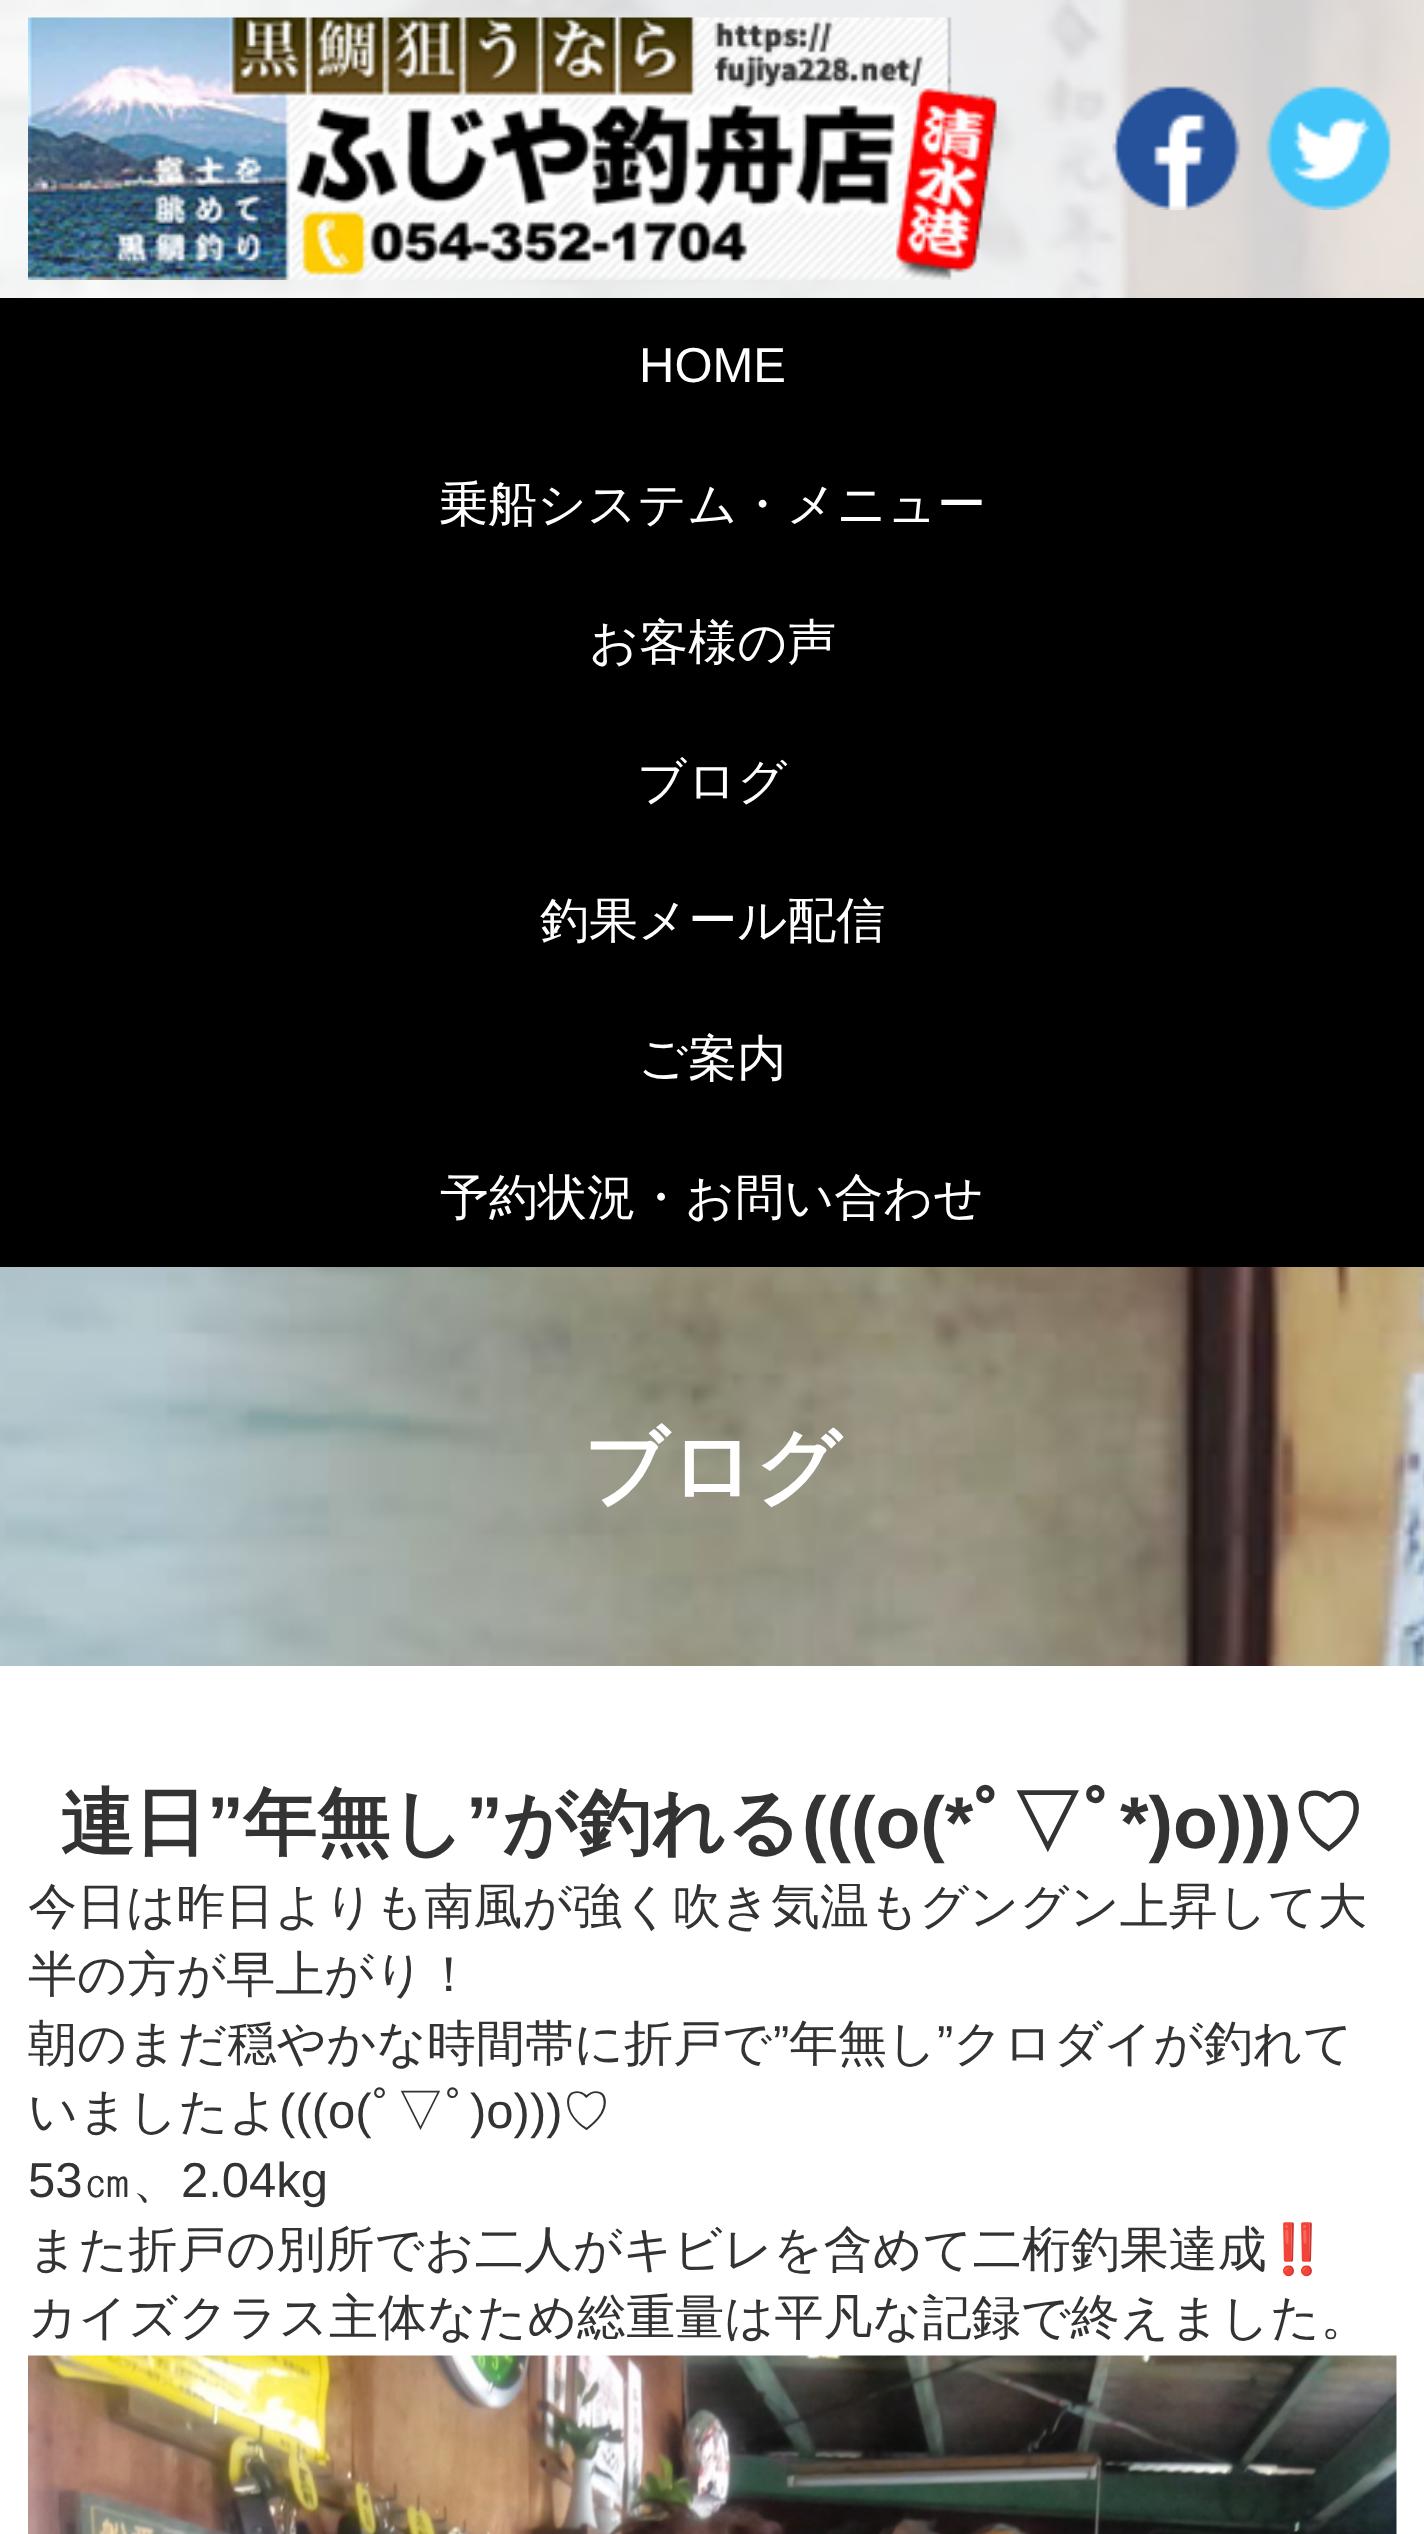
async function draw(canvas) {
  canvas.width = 1424;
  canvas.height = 2534;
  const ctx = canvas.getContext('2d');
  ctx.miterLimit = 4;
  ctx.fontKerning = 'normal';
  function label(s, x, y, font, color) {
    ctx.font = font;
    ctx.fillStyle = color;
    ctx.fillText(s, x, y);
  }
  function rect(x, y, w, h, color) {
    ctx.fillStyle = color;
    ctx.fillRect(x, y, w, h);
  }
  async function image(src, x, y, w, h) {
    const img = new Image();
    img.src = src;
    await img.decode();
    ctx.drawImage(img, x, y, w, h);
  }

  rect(0, 0, 1424, 2534, '#fff');
  await image('assets/img1.png', 0, 0, 1424, 1666);
  rect(0, 0, 1424, 298, '#ffffffcc');
  await image('assets/img2.png', 28, 17, 969, 263);
  await image('assets/img3.png', 1112, 86, 129, 124);
  await image('assets/img4.png', 1265, 86, 126, 124);
  rect(0, 298, 1424, 969, '#000');
  label('HOME', 639, 382, '49px Liberation Sans', '#fff');
  label('乗船システム・メニュー', 439, 521, '500 49px WenQuanYi Zen Hei', '#fff');
  label('お客様の声', 589, 659, '500 49px WenQuanYi Zen Hei', '#fff');
  label('ブログ', 637, 798, '500 49px WenQuanYi Zen Hei', '#fff');
  label('釣果メール配信', 540, 937, '500 49px WenQuanYi Zen Hei', '#fff');
  label('ご案内', 638, 1075, '500 49px WenQuanYi Zen Hei', '#fff');
  label('予約状況・お問い合わせ', 440, 1214, '500 49px WenQuanYi Zen Hei', '#fff');
  label('ブログ', 583, 1496, 'bold 84px WenQuanYi Zen Hei', '#fff');
  label('連日', 60, 1848, 'bold 73.5px WenQuanYi Zen Hei', '#333');
  label('”', 207, 1848, 'bold 73.5px Liberation Sans', '#333');
  label('年無し', 243, 1848, 'bold 73.5px WenQuanYi Zen Hei', '#333');
  label('”', 466, 1848, 'bold 73.5px Liberation Sans', '#333');
  label('が釣れる', 502, 1848, 'bold 73.5px WenQuanYi Zen Hei', '#333');
  label('(((o(*', 802, 1848, 'bold 73.5px Liberation Sans', '#333');
  label('ﾟ', 973, 1848, 'bold 73.5px IPAPGothic', '#333');
  label('▽', 1010, 1848, 'bold 73.5px WenQuanYi Zen Hei', '#333');
  label('ﾟ', 1083, 1848, 'bold 73.5px IPAPGothic', '#333');
  label('*)o)))', 1120, 1848, 'bold 73.5px Liberation Sans', '#333');
  label('♡', 1291, 1848, 'bold 73.5px WenQuanYi Zen Hei', '#333');
  label('今日は昨日よりも南風が強く吹き気温もグングン上昇して大', 28, 1923, '500 49px WenQuanYi Zen Hei', '#333');
  label('半の方が早上がり！', 28, 1991, '500 49px WenQuanYi Zen Hei', '#333');
  label('朝のまだ穏やかな時間帯に折戸で', 28, 2060, '500 49px WenQuanYi Zen Hei', '#333');
  label('”', 773, 2060, '49px Liberation Sans', '#333');
  label('年無し', 789, 2060, '500 49px WenQuanYi Zen Hei', '#333');
  label('”', 937, 2060, '49px Liberation Sans', '#333');
  label('クロダイが釣れて', 953, 2060, '500 49px WenQuanYi Zen Hei', '#333');
  label('いましたよ', 28, 2128, '500 49px WenQuanYi Zen Hei', '#333');
  label('(((o(', 279, 2128, '49px Liberation Sans', '#333');
  label('ﾟ', 372, 2128, '49px IPAPGothic', '#333');
  label('▽', 396, 2128, '500 49px WenQuanYi Zen Hei', '#333');
  label('ﾟ', 445, 2128, '49px IPAPGothic', '#333');
  label(')o)))', 470, 2128, '49px Liberation Sans', '#333');
  label('♡', 562, 2128, '500 49px WenQuanYi Zen Hei', '#333');
  label('53', 28, 2197, '49px Liberation Sans', '#333');
  label('㎝、', 83, 2197, '500 49px WenQuanYi Zen Hei', '#333');
  label('2.04kg', 181, 2197, '49px Liberation Sans', '#333');
  label('また折戸の別所でお二人がキビレを含めて二桁釣果達成', 28, 2266, '500 49px WenQuanYi Zen Hei', '#333');
  label('‼️', 1267, 2266, '49px Noto Color Emoji', '#333');
  label('カイズクラス主体なため総重量は平凡な記録で終えました。', 28, 2334, '500 49px WenQuanYi Zen Hei', '#333');
  await image('assets/img5.png', 28, 2355, 1369, 179);
}

draw(document.querySelector('canvas'));
